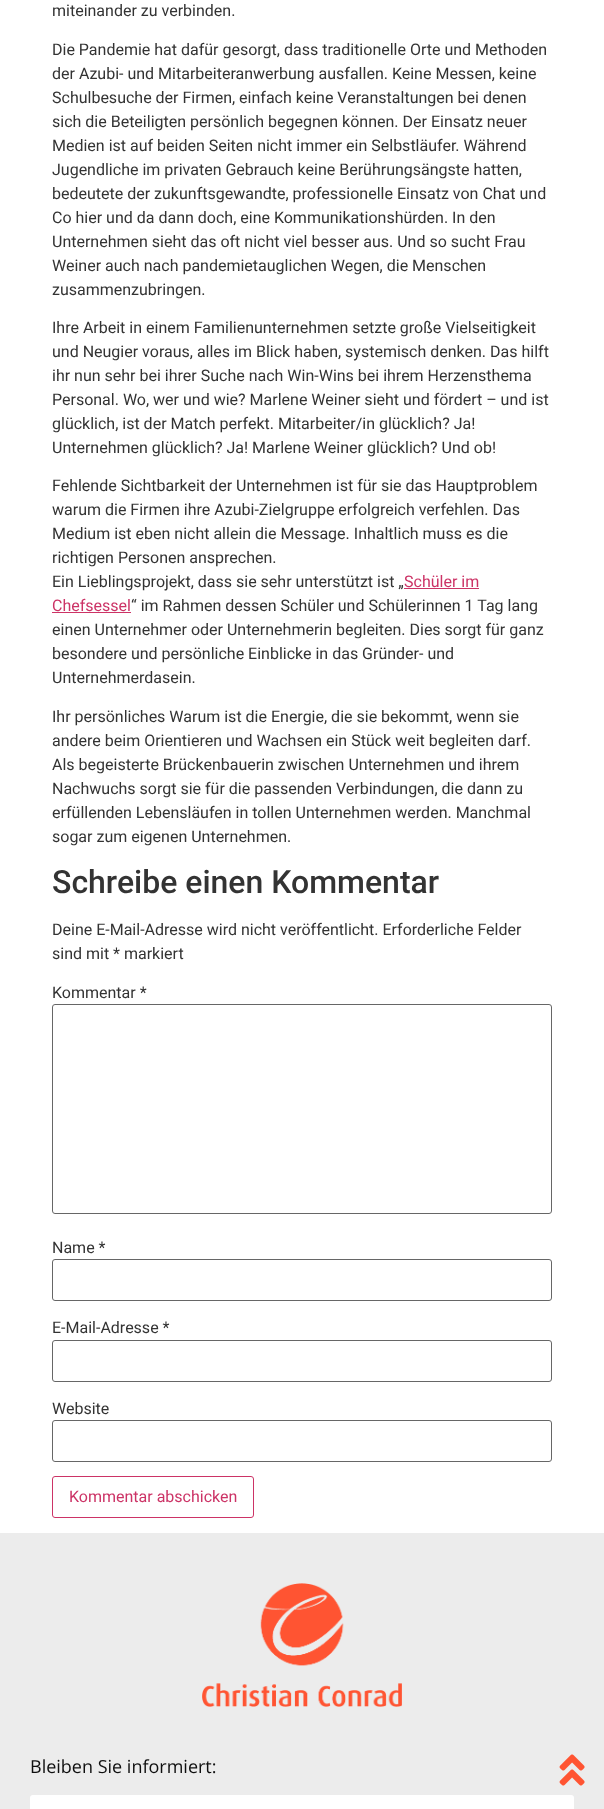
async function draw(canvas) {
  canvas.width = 604;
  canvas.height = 1809;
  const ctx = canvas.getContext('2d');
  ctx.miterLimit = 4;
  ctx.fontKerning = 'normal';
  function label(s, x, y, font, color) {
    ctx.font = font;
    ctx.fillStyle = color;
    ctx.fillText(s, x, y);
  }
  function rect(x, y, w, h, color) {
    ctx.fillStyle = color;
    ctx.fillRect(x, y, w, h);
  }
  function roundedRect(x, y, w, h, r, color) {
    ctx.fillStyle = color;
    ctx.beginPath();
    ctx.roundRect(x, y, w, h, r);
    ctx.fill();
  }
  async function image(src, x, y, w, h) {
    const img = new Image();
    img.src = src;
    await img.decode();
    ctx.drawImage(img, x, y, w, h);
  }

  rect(0, 0, 604, 1809, '#fff');
  label('miteinander zu verbinden.', 52, 16, '16px Roboto', '#333');
  label('Die Pandemie hat dafür gesorgt, dass traditionelle Orte und Methoden', 52, 55, '16px Roboto', '#333');
  label('der Azubi- und Mitarbeiteranwerbung ausfallen. Keine Messen, keine', 52, 79, '16px Roboto', '#333');
  label('Schulbesuche der Firmen, einfach keine Veranstaltungen bei denen', 52, 103, '16px Roboto', '#333');
  label('sich die Beteiligten persönlich begegnen können. Der Einsatz neuer', 52, 127, '16px Roboto', '#333');
  label('Medien ist auf beiden Seiten nicht immer ein Selbstläufer. Während', 52, 151, '16px Roboto', '#333');
  label('Jugendliche im privaten Gebrauch keine Berührungsängste hatten,', 52, 175, '16px Roboto', '#333');
  label('bedeutete der zukunftsgewandte, professionelle Einsatz von Chat und', 52, 199, '16px Roboto', '#333');
  label('Co hier und da dann doch, eine Kommunikationshürden. In den', 52, 223, '16px Roboto', '#333');
  label('Unternehmen sieht das oft nicht viel besser aus. Und so sucht Frau', 52, 247, '16px Roboto', '#333');
  label('Weiner auch nach pandemietauglichen Wegen, die Menschen', 52, 271, '16px Roboto', '#333');
  label('zusammenzubringen.', 52, 295, '16px Roboto', '#333');
  label('Ihre Arbeit in einem Familienunternehmen setzte große Vielseitigkeit', 52, 333, '16px Roboto', '#333');
  label('und Neugier voraus, alles im Blick haben, systemisch denken. Das hilft', 52, 357, '16px Roboto', '#333');
  label('ihr nun sehr bei ihrer Suche nach Win-Wins bei ihrem Herzensthema', 52, 381, '16px Roboto', '#333');
  label('Personal. Wo, wer und wie? Marlene Weiner sieht und fördert – und ist', 52, 405, '16px Roboto', '#333');
  label('glücklich, ist der Match perfekt. Mitarbeiter/in glücklich? Ja!', 52, 429, '16px Roboto', '#333');
  label('Unternehmen glücklich? Ja! Marlene Weiner glücklich? Und ob!', 52, 453, '16px Roboto', '#333');
  label('Fehlende Sichtbarkeit der Unternehmen ist für sie das Hauptproblem', 52, 491, '16px Roboto', '#333');
  label('warum die Firmen ihre Azubi-Zielgruppe erfolgreich verfehlen. Das', 52, 515, '16px Roboto', '#333');
  label('Medium ist eben nicht allein die Message. Inhaltlich muss es die', 52, 539, '16px Roboto', '#333');
  label('richtigen Personen ansprechen.', 52, 563, '16px Roboto', '#333');
  label('Ein Lieblingsprojekt, dass sie sehr unterstützt ist „', 52, 587, '16px Roboto', '#333');
  label('Schüler im', 404, 587, '16px Roboto', '#c36');
  rect(404, 588, 75, 1, '#c36');
  label('Chefsessel', 52, 611, '16px Roboto', '#c36');
  rect(52, 612, 79, 1, '#c36');
  label('“ im Rahmen dessen Schüler und Schülerinnen 1 Tag lang', 131, 611, '16px Roboto', '#333');
  label('einen Unternehmer oder Unternehmerin begleiten. Dies sorgt für ganz', 52, 635, '16px Roboto', '#333');
  label('besondere und persönliche Einblicke in das Gründer- und', 52, 659, '16px Roboto', '#333');
  label('Unternehmerdasein.', 52, 683, '16px Roboto', '#333');
  label('Ihr persönliches Warum ist die Energie, die sie bekommt, wenn sie', 52, 722, '16px Roboto', '#333');
  label('andere beim Orientieren und Wachsen ein Stück weit begleiten darf.', 52, 746, '16px Roboto', '#333');
  label('Als begeisterte Brückenbauerin zwischen Unternehmen und ihrem', 52, 770, '16px Roboto', '#333');
  label('Nachwuchs sorgt sie für die passenden Verbindungen, die dann zu', 52, 794, '16px Roboto', '#333');
  label('erfüllenden Lebensläufen in tollen Unternehmen werden. Manchmal', 52, 818, '16px Roboto', '#333');
  label('sogar zum eigenen Unternehmen.', 52, 842, '16px Roboto', '#333');
  label('Schreibe einen Kommentar', 52, 893, '500 32px Roboto', '#333');
  label('Deine E-Mail-Adresse wird nicht veröffentlicht. Erforderliche Felder', 52, 935, '16px Roboto', '#333');
  label('sind mit * markiert', 52, 959, '16px Roboto', '#333');
  label('Kommentar *', 52, 998, '16px Roboto', '#333');
  ctx.beginPath();
  ctx.roundRect(52.5, 1004.5, 499, 209, 2.5);
  ctx.strokeStyle = '#666';
  ctx.stroke();
  label('Name *', 52, 1253, '16px Roboto', '#333');
  ctx.beginPath();
  ctx.roundRect(52.5, 1259.5, 499, 41, 2.5);
  ctx.stroke();
  label('E-Mail-Adresse *', 52, 1333, '16px Roboto', '#333');
  ctx.beginPath();
  ctx.roundRect(52.5, 1340.5, 499, 41, 2.5);
  ctx.stroke();
  label('Website', 52, 1414, '16px Roboto', '#333');
  ctx.beginPath();
  ctx.roundRect(52.5, 1420.5, 499, 41, 2.5);
  ctx.stroke();
  ctx.beginPath();
  ctx.roundRect(52.5, 1476.5, 201, 41, 2.5);
  ctx.strokeStyle = '#c36';
  ctx.stroke();
  label('Kommentar abschicken', 69, 1502, '16px Roboto', '#c36');
  rect(0, 1533, 604, 276, '#ececec');
  await image('assets/img1.png', 202, 1583, 200, 124);
  label('Bleiben Sie informiert:', 30, 1773, '18px Open Sans', '#0f0f0f');
  await image('assets/img2.png', 559, 1754, 26, 32);
  roundedRect(30, 1795, 544, 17, 3, '#fff');
}

draw(document.querySelector('canvas'));
